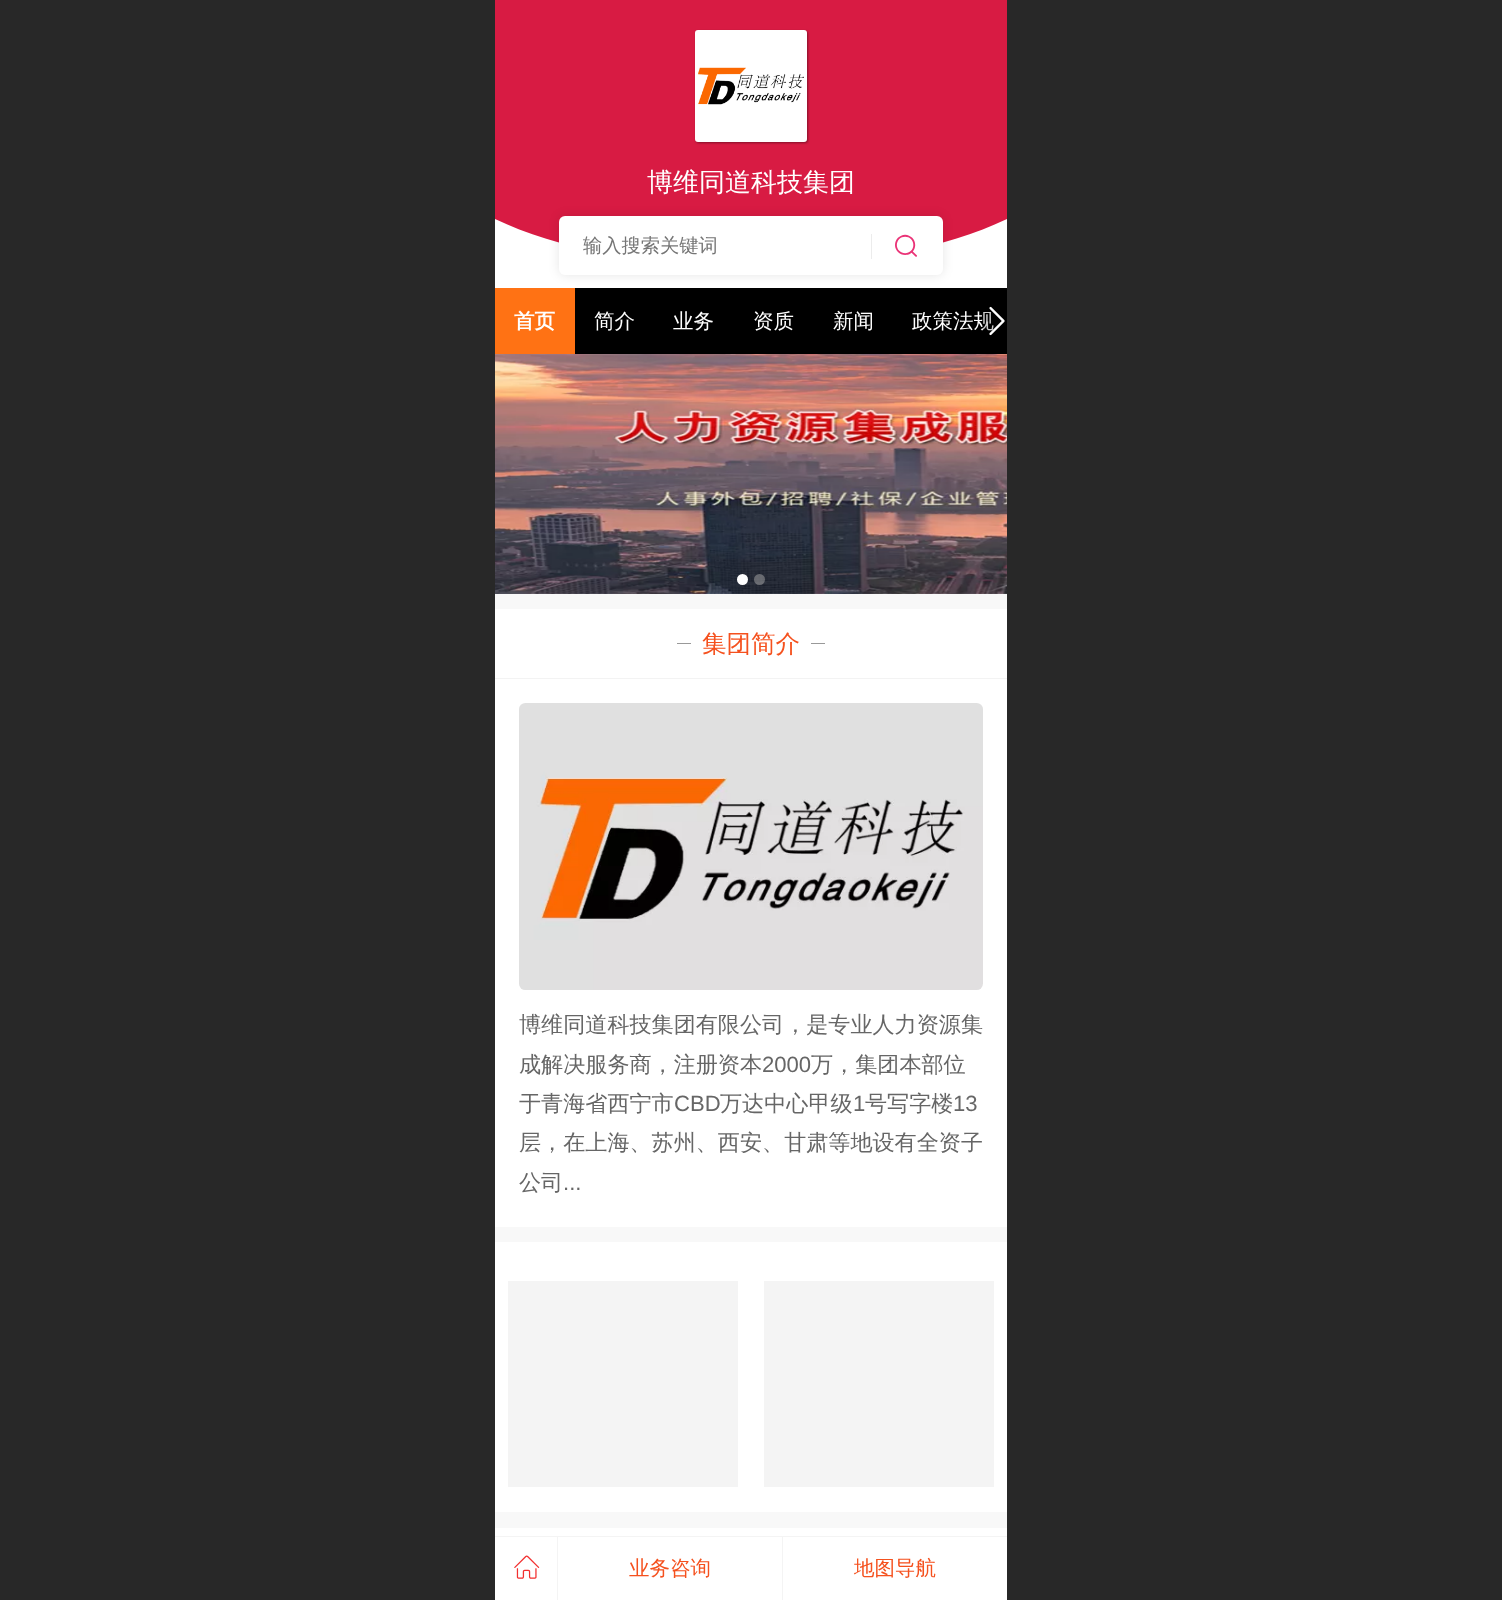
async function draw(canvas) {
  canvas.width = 1502;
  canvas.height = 1600;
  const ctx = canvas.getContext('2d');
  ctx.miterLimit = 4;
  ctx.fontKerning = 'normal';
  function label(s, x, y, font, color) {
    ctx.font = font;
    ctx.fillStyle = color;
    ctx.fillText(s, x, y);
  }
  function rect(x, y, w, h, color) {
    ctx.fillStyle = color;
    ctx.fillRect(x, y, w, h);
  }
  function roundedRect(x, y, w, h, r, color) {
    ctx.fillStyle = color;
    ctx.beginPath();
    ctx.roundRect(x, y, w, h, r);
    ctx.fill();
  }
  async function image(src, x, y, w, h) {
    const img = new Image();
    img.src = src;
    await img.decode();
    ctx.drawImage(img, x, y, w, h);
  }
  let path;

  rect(0, 0, 1502, 1600, '#f8f8f8');
  rect(0, 0, 495, 1600, '#282828');
  rect(495, 219, 512, 69, '#fff');
  ctx.fillStyle = '#d81b43';
  path = new Path2D('M495 0H1007V219C946 248 854 267 751 267C648 267 556 248 495 219Z');
  ctx.fill(path);
  ctx.fillStyle = '#00000066';
  ctx.filter = 'blur(1px)';
  ctx.beginPath();
  ctx.roundRect(696, 31, 112, 112, 3);
  ctx.fill();
  ctx.filter = 'none';
  await image('assets/img1.png', 695, 30, 112, 112);
  label('博维同道科技集团', 647, 191, '500 26px WenQuanYi Zen Hei', '#fff');
  rect(575, 288, 432, 66, '#000');
  rect(495, 288, 80, 66, '#ff7214');
  ctx.fillStyle = '#0000001a';
  ctx.filter = 'blur(5.5px)';
  ctx.beginPath();
  ctx.roundRect(559, 216, 384, 59, 6);
  ctx.fill();
  ctx.filter = 'none';
  roundedRect(559, 216, 384, 59, 6, '#fff');
  label('输入搜索关键词', 583, 252, '500 19.25px WenQuanYi Zen Hei', '#757575');
  rect(871, 234, 1, 25, '#ececec');
  label('򰊐', 895, 255, '22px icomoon', '#ea3377');
  label('政策法规', 912, 328, '500 20.5px WenQuanYi Zen Hei', '#fff');
  rect(983, 312, 11, 19, '#00000033');
  await image('assets/img2.png', 989, 306, 16, 30);
  label('首页', 514, 328, 'bold 20.5px WenQuanYi Zen Hei', '#fff');
  label('简介', 594, 328, '500 20.5px WenQuanYi Zen Hei', '#fff');
  label('业务', 673, 328, '500 20.5px WenQuanYi Zen Hei', '#fff');
  label('资质', 753, 328, '500 20.5px WenQuanYi Zen Hei', '#fff');
  label('新闻', 833, 328, '500 20.5px WenQuanYi Zen Hei', '#fff');
  await image('assets/img3.png', 495, 354, 512, 240);
  ctx.beginPath();
  ctx.arc(742.5, 579.5, 5.5, 0, 2 * Math.PI);
  ctx.fill();
  ctx.fillStyle = '#ababab80';
  ctx.beginPath();
  ctx.arc(759.5, 579.5, 5.5, 0, 2 * Math.PI);
  ctx.fill();
  rect(495, 609, 512, 69, '#fff');
  rect(495, 678, 512, 1, '#f3f3f3');
  rect(677, 643, 14, 1, '#999');
  label('集团简介', 702, 652, '500 24.5px WenQuanYi Zen Hei', '#f5511e');
  rect(811, 643, 14, 1, '#999');
  rect(495, 679, 512, 548, '#fff');
  await image('assets/img4.png', 519, 703, 464, 287);
  label('博维同道科技集团有限公司，是专业人力资源集', 519, 1032, '500 22.1px WenQuanYi Zen Hei', '#666');
  label('成解决服务商，注册资本', 519, 1072, '500 22.1px WenQuanYi Zen Hei', '#666');
  label('2000', 762, 1072, '22.1px Liberation Sans', '#666');
  label('万，集团本部位', 811, 1072, '500 22.1px WenQuanYi Zen Hei', '#666');
  label('于青海省西宁市', 519, 1111, '500 22.1px WenQuanYi Zen Hei', '#666');
  label('CBD', 674, 1111, '22.1px Liberation Sans', '#666');
  label('万达中心甲级', 720, 1111, '500 22.1px WenQuanYi Zen Hei', '#666');
  label('1', 853, 1111, '22.1px Liberation Sans', '#666');
  label('号写字楼', 865, 1111, '500 22.1px WenQuanYi Zen Hei', '#666');
  label('13', 953, 1111, '22.1px Liberation Sans', '#666');
  label('层，在上海、苏州、西安、甘肃等地设有全资子', 519, 1150, '500 22.1px WenQuanYi Zen Hei', '#666');
  label('公司', 519, 1190, '500 22.1px WenQuanYi Zen Hei', '#666');
  label('...', 563, 1190, '22.1px Liberation Sans', '#666');
  rect(495, 1242, 512, 270, '#fff');
  rect(508, 1281, 230, 206, '#f4f4f4');
  rect(764, 1281, 230, 206, '#f4f4f4');
  rect(495, 1528, 512, 8, '#fff');
  rect(495, 1537, 512, 63, '#fff');
  rect(495, 1536, 512, 1, '#f4f4f4');
  rect(557, 1537, 1, 63, '#f4f4f4');
  label('򠡀', 514, 1578, '25px icomoon', '#f23030');
  rect(782, 1537, 1, 63, '#f4f4f4');
  label('业务咨询', 629, 1575, '500 20.5px WenQuanYi Zen Hei', '#f5511e');
  label('地图导航', 854, 1575, '500 20.5px WenQuanYi Zen Hei', '#f5511e');
  rect(1007, 0, 495, 1600, '#282828');
}

draw(document.querySelector('canvas'));
